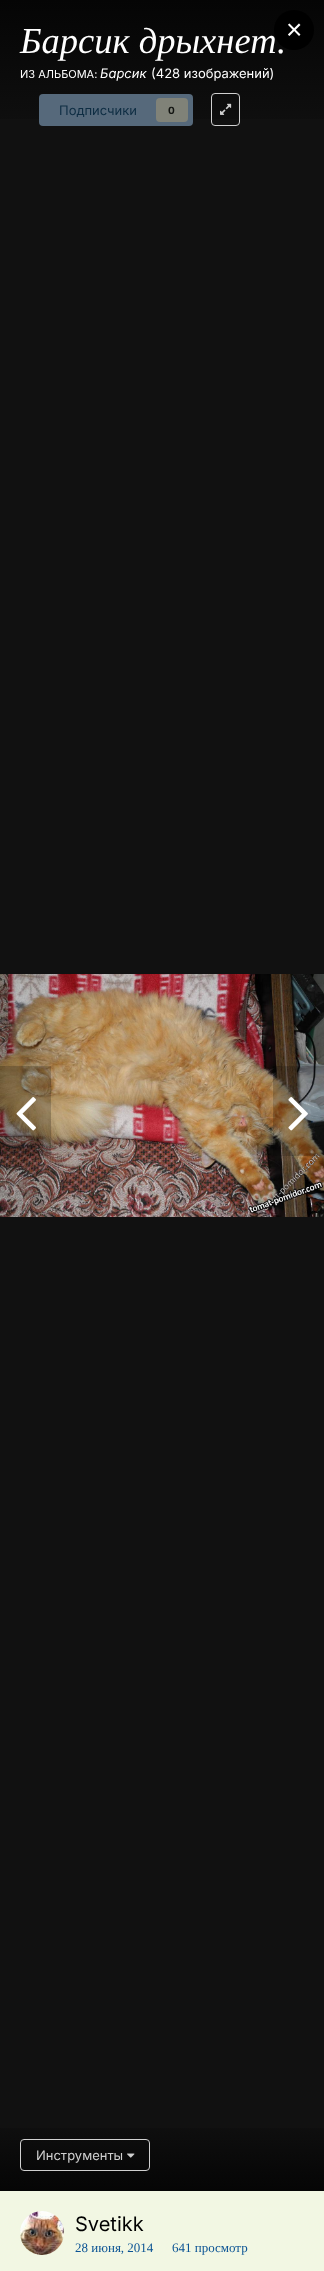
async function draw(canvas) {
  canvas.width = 324;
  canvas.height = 2271;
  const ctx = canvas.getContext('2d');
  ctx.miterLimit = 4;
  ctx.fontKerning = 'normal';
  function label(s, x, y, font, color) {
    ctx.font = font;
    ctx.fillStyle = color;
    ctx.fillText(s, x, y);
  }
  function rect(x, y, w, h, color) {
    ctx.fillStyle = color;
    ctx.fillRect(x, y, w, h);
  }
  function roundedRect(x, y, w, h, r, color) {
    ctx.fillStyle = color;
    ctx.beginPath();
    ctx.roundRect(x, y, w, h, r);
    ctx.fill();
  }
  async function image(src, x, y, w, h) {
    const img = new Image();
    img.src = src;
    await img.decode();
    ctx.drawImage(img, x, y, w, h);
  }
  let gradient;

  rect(0, 0, 324, 2271, '#111');
  gradient = ctx.createLinearGradient(162, 0, 162, 150);
  gradient.addColorStop(0, '#050505');
  gradient.addColorStop(1, '#111');
  ctx.fillStyle = gradient;
  ctx.fillRect(0, 0, 324, 119);
  label('Барсик дрыхнет.', 20, 53, 'italic 36.5px Liberation Serif', '#fff');
  label('ИЗ АЛЬБОМА:', 20, 78, '11px Inter', '#fff');
  label('Барсик', 100, 78, 'italic 13px Inter', '#fff');
  label('(428 изображений)', 151, 78, '13px Inter', '#fff');
  roundedRect(39, 94, 154, 32, 4, '#56697b');
  label('Подписчики', 59, 115, '13px Inter', '#0e2d43');
  roundedRect(156, 98, 32, 24, 4, '#808278');
  label('0', 168, 114, 'bold 10px Inter', '#121411');
  ctx.beginPath();
  ctx.roundRect(211.5, 93.5, 28, 32, 3.5);
  ctx.strokeStyle = '#d0d0d0';
  ctx.stroke();
  await image('assets/img1.png', 220, 103, 12, 12);
  gradient = ctx.createLinearGradient(162, 2111, 162, 2191);
  gradient.addColorStop(0, '#111');
  gradient.addColorStop(1, '#050505');
  ctx.fillStyle = gradient;
  ctx.fillRect(0, 2128, 324, 63);
  ctx.beginPath();
  ctx.roundRect(20.5, 2139.5, 129, 31, 3.5);
  ctx.stroke();
  label('Инструменты', 36, 2160, '13px Inter', '#d0d0d0');
  await image('assets/img2.png', 127, 2153, 8, 5);
  await image('assets/img3.png', 0, 974, 324, 243);
  rect(0, 1066, 51, 90, '#00000033');
  await image('assets/img4.png', 16, 1097, 20, 34);
  rect(273, 1066, 51, 90, '#00000033');
  await image('assets/img5.png', 288, 1097, 20, 34);
  rect(0, 2191, 324, 80, '#f2f7e3');
  await image('assets/img6.png', 20, 2211, 44, 44);
  label('Svetikk', 75, 2231, '20px Inter', '#000');
  label('28 июня, 2014', 75, 2252, '13px Liberation Serif', '#0b5394');
  label('641 просмотр', 172, 2252, '13px Liberation Serif', '#0b5394');
  ctx.fillStyle = '#000';
  ctx.beginPath();
  ctx.arc(294, 30, 20, 0, 2 * Math.PI);
  ctx.fill();
  label('×', 286, 39, '28px Liberation Sans', '#fff');
}

draw(document.querySelector('canvas'));
